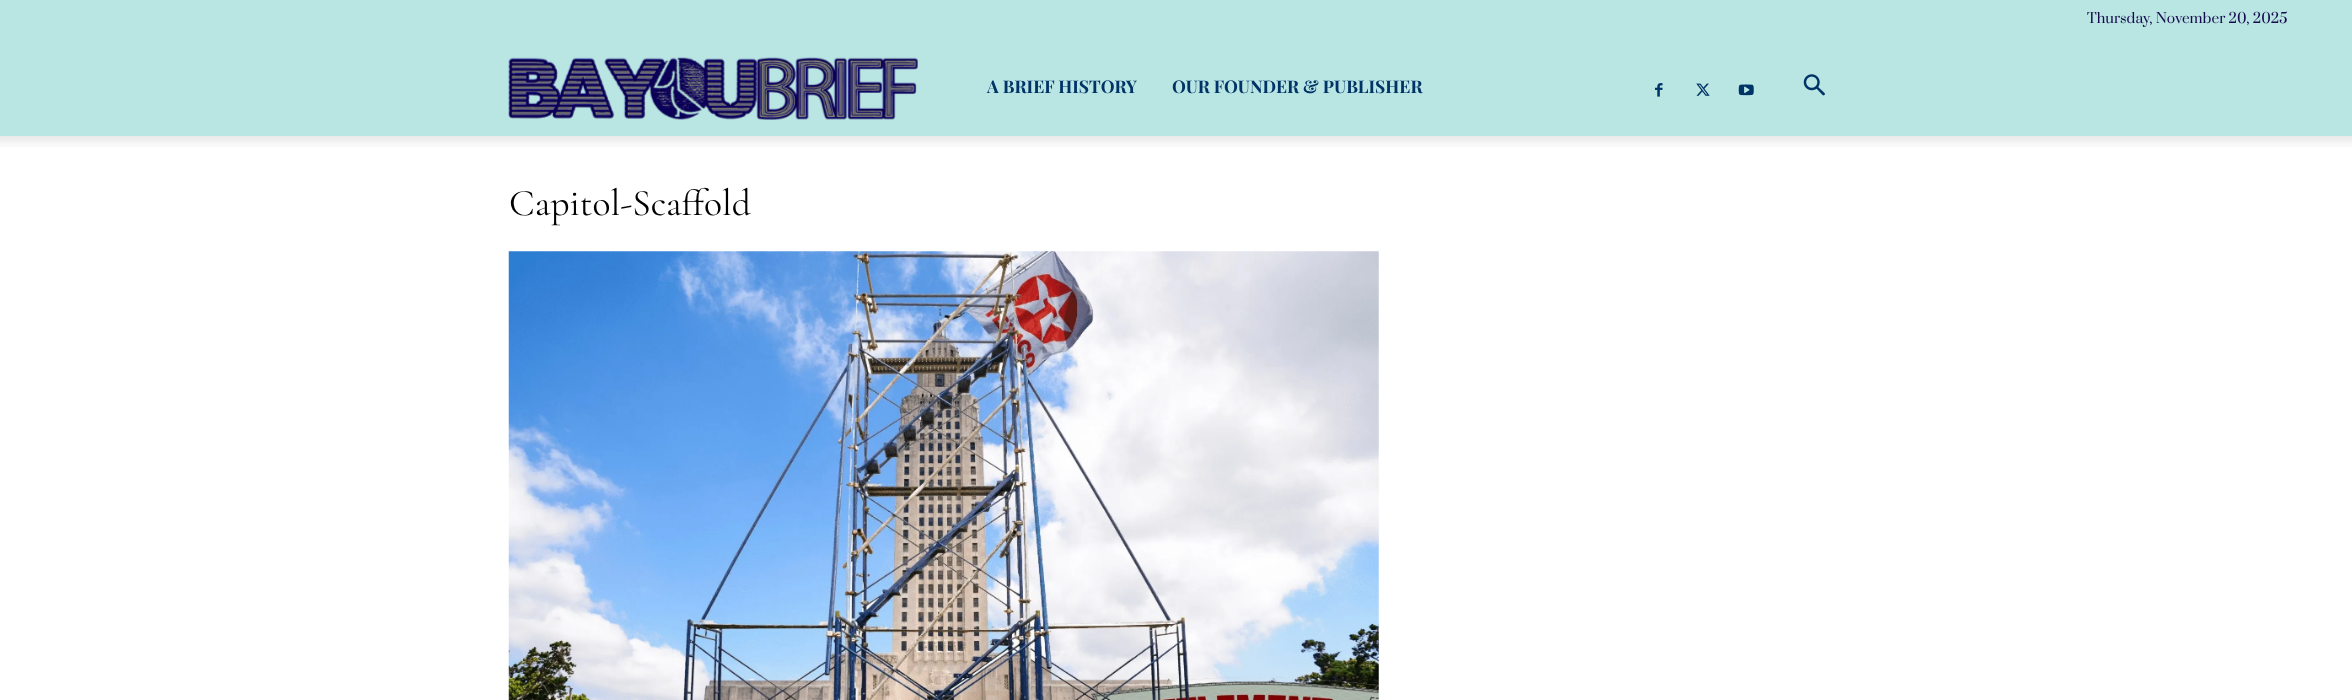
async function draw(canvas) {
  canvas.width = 2352;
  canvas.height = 700;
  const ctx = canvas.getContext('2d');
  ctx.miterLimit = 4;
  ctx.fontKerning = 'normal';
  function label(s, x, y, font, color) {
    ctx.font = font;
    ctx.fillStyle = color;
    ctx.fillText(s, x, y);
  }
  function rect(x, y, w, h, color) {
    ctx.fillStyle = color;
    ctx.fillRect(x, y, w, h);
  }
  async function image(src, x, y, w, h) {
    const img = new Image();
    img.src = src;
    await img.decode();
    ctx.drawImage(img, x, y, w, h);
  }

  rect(0, 0, 2352, 700, '#fff');
  rect(0, 0, 2352, 136, '#b9e5e3');
  label('Thursday, November 20, 2025', 2087, 23, '13.75px Prata', '#170b4f');
  await image('assets/img1.png', 508, 57, 410, 63);
  label('A BRIEF HISTORY', 987, 93, 'bold 17.5px Playfair Display', '#036');
  label('OUR FOUNDER & PUBLISHER', 1172, 93, 'bold 17.5px Playfair Display', '#036');
  await image('assets/img2.png', 1655, 83, 8, 14);
  await image('assets/img3.png', 1696, 83, 14, 13);
  await image('assets/img4.png', 1738, 84, 16, 12);
  await image('assets/img5.png', 1803, 74, 22, 22);
  await image('assets/img6.png', 0, 136, 2352, 11);
  label('Capitol-Scaffold', 509, 215, '37.5px Cormorant Garamond', '#000');
  await image('assets/img7.png', 508, 251, 871, 449);
}

draw(document.querySelector('canvas'));
